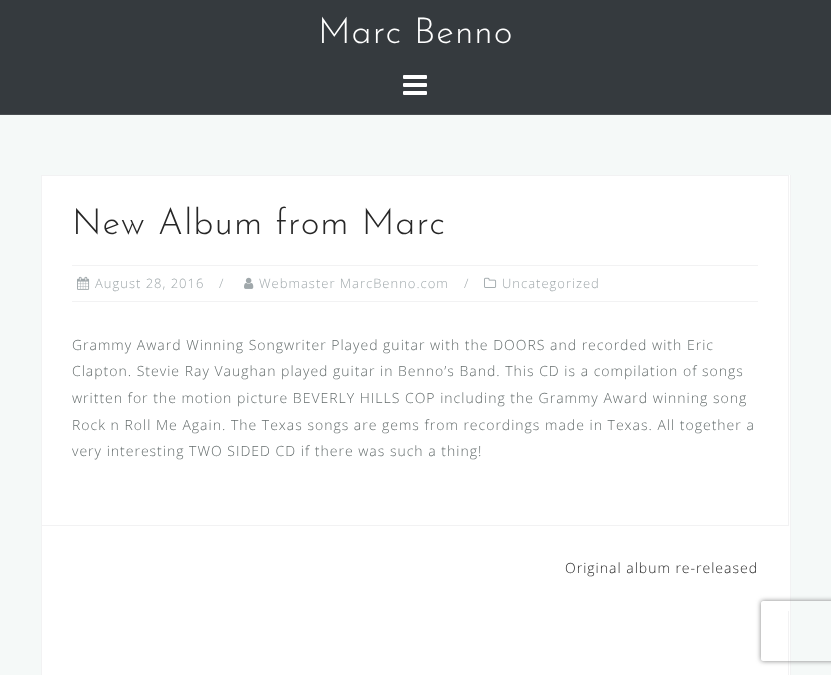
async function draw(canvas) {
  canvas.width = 831;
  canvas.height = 675;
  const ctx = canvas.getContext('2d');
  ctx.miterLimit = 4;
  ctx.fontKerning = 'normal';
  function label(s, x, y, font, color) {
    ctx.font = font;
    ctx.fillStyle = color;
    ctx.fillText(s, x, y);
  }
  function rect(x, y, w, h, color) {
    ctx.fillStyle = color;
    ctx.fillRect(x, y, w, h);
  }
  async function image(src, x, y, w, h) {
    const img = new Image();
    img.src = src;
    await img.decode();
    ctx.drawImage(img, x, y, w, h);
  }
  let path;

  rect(0, 0, 831, 675, '#f5f9f8');
  rect(0, 0, 831, 114, '#353a3e');
  rect(0, 114, 831, 1, '#494e51');
  ctx.letterSpacing = '1px';
  label('Marc Benno', 318, 43, '100 36px Josefin Sans', '#fff');
  await image('assets/img1.png', 403, 75, 24, 20);
  rect(42, 175, 748, 500, '#fff');
  rect(790, 175, 1, 500, '#f2f2f3');
  rect(41, 526, 1, 149, '#f2f2f3');
  ctx.strokeStyle = '#f2f2f3';
  ctx.strokeRect(41.5, 175.5, 747, 350);
  label('New Album from Marc', 72, 234, '100 36px Josefin Sans', '#272727');
  rect(72, 265, 686, 1, '#f2f2f3');
  rect(72, 301, 686, 1, '#f2f2f3');
  await image('assets/img2.png', 77, 276, 13, 14);
  label('August 28, 2016', 95, 288, '300 13px Open Sans', '#a0a8ab');
  label('/', 219, 288, '300 13px Open Sans', '#a0a8ab');
  await image('assets/img3.png', 244, 277, 10, 12);
  label('Webmaster MarcBenno.com', 259, 288, '300 13px Open Sans', '#a0a8ab');
  label('/', 464, 288, '300 13px Open Sans', '#a0a8ab');
  await image('assets/img4.png', 484, 277, 13, 11);
  label('Uncategorized', 502, 288, '300 13px Open Sans', '#a0a8ab');
  label('Grammy Award Winning Songwriter Played guitar with the DOORS and recorded with Eric', 72, 350, '300 14px Open Sans', '#656d6d');
  label('Clapton. Stevie Ray Vaughan played guitar in Benno’s Band. This CD is a compilation of songs', 72, 376, '300 14px Open Sans', '#656d6d');
  label('written for the motion picture BEVERLY HILLS COP including the Grammy Award winning song', 72, 403, '300 14px Open Sans', '#656d6d');
  label('Rock n Roll Me Again. The Texas songs are gems from recordings made in Texas. All together a', 72, 430, '300 14px Open Sans', '#656d6d');
  label('very interesting TWO SIDED CD if there was such a thing!', 72, 456, '300 14px Open Sans', '#656d6d');
  label('Original album re-released', 565, 573, '300 14px Open Sans', '#272727');
  rect(788, 611, 1, 64, '#f2f2f3');
  ctx.save();
  path = new Path2D('M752 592H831V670H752ZM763 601H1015C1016 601 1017 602 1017 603V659C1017 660 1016 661 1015 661H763C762 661 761 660 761 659V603C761 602 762 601 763 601Z');
  ctx.clip(path, 'evenodd');
  ctx.fillStyle = '#808080';
  ctx.filter = 'blur(2.5px)';
  ctx.beginPath();
  ctx.roundRect(761, 601, 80, 60, 2);
  ctx.fill();
  ctx.filter = 'none';
  ctx.restore();
}

draw(document.querySelector('canvas'));
